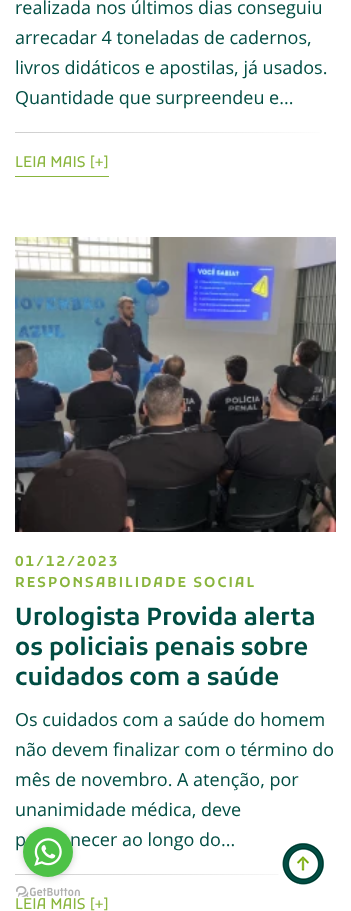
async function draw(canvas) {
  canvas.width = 351;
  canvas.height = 911;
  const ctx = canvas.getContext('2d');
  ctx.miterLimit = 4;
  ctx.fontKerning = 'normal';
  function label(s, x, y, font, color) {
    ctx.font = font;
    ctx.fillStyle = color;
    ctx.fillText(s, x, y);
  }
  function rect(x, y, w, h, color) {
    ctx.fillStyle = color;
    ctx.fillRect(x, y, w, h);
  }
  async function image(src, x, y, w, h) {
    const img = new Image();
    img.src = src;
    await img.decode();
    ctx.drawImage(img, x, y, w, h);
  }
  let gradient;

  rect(0, 0, 351, 911, '#fff');
  label('realizada nos últimos dias conseguiu', 15, 14, '18px Open Sans', '#004d43');
  label('arrecadar 4 toneladas de cadernos,', 15, 44, '18px Open Sans', '#004d43');
  label('livros didáticos e apostilas, já usados.', 15, 74, '18px Open Sans', '#004d43');
  label('Quantidade que surpreendeu e...', 15, 104, '18px Open Sans', '#004d43');
  gradient = ctx.createLinearGradient(15, 133, 336, 133);
  gradient.addColorStop(0, '#cecece');
  gradient.addColorStop(1, '#fff');
  ctx.fillStyle = gradient;
  ctx.fillRect(15, 132, 305, 1);
  rect(15, 176, 94, 1, '#89b53c');
  label('LEIA MAIS [+]', 15, 167, '15px Kufam', '#89b53c');
  await image('assets/img1.png', 15, 237, 321, 295);
  ctx.letterSpacing = '2px';
  label('01/12/2023', 15, 566, '600 14px Kufam', '#89b53c');
  label('RESPONSABILIDADE SOCIAL', 15, 587, '600 14px Kufam', '#89b53c');
  ctx.letterSpacing = '0px';
  label('Urologista Provida alerta', 15, 625, '600 24px Kufam', '#004d43');
  label('os policiais penais sobre', 15, 655, '600 24px Kufam', '#004d43');
  label('cuidados com a saúde', 15, 685, '600 24px Kufam', '#004d43');
  label('Os cuidados com a saúde do homem', 15, 726, '18px Open Sans', '#004d43');
  label('não devem finalizar com o término do', 15, 756, '18px Open Sans', '#004d43');
  label('mês de novembro. A atenção, por', 15, 786, '18px Open Sans', '#004d43');
  label('unanimidade médica, deve', 15, 816, '18px Open Sans', '#004d43');
  label('p', 15, 846, '18px Open Sans', '#004d43');
  label('necer ao longo do...', 70, 846, '18px Open Sans', '#004d43');
  gradient = ctx.createLinearGradient(15, 875, 336, 875);
  gradient.addColorStop(0, '#cecece');
  gradient.addColorStop(1, '#fff');
  ctx.fillStyle = gradient;
  ctx.fillRect(15, 874, 305, 1);
  label('LEIA MAIS [+]', 15, 909, '15px Kufam', '#89b53c');
  await image('assets/img3.png', 16, 886, 64, 11);
  ctx.fillStyle = '#88888866';
  ctx.filter = 'blur(3.5px)';
  ctx.beginPath();
  ctx.roundRect(23, 828, 50, 50, 25);
  ctx.fill();
  ctx.filter = 'none';
  ctx.fillStyle = '#4dc247';
  ctx.beginPath();
  ctx.arc(48, 852, 25, 0, 2 * Math.PI);
  ctx.fill();
  await image('assets/img2.png', 34, 838, 28, 28);
  await image('assets/img4.png', 278, 843, 46, 42);
}

draw(document.querySelector('canvas'));
